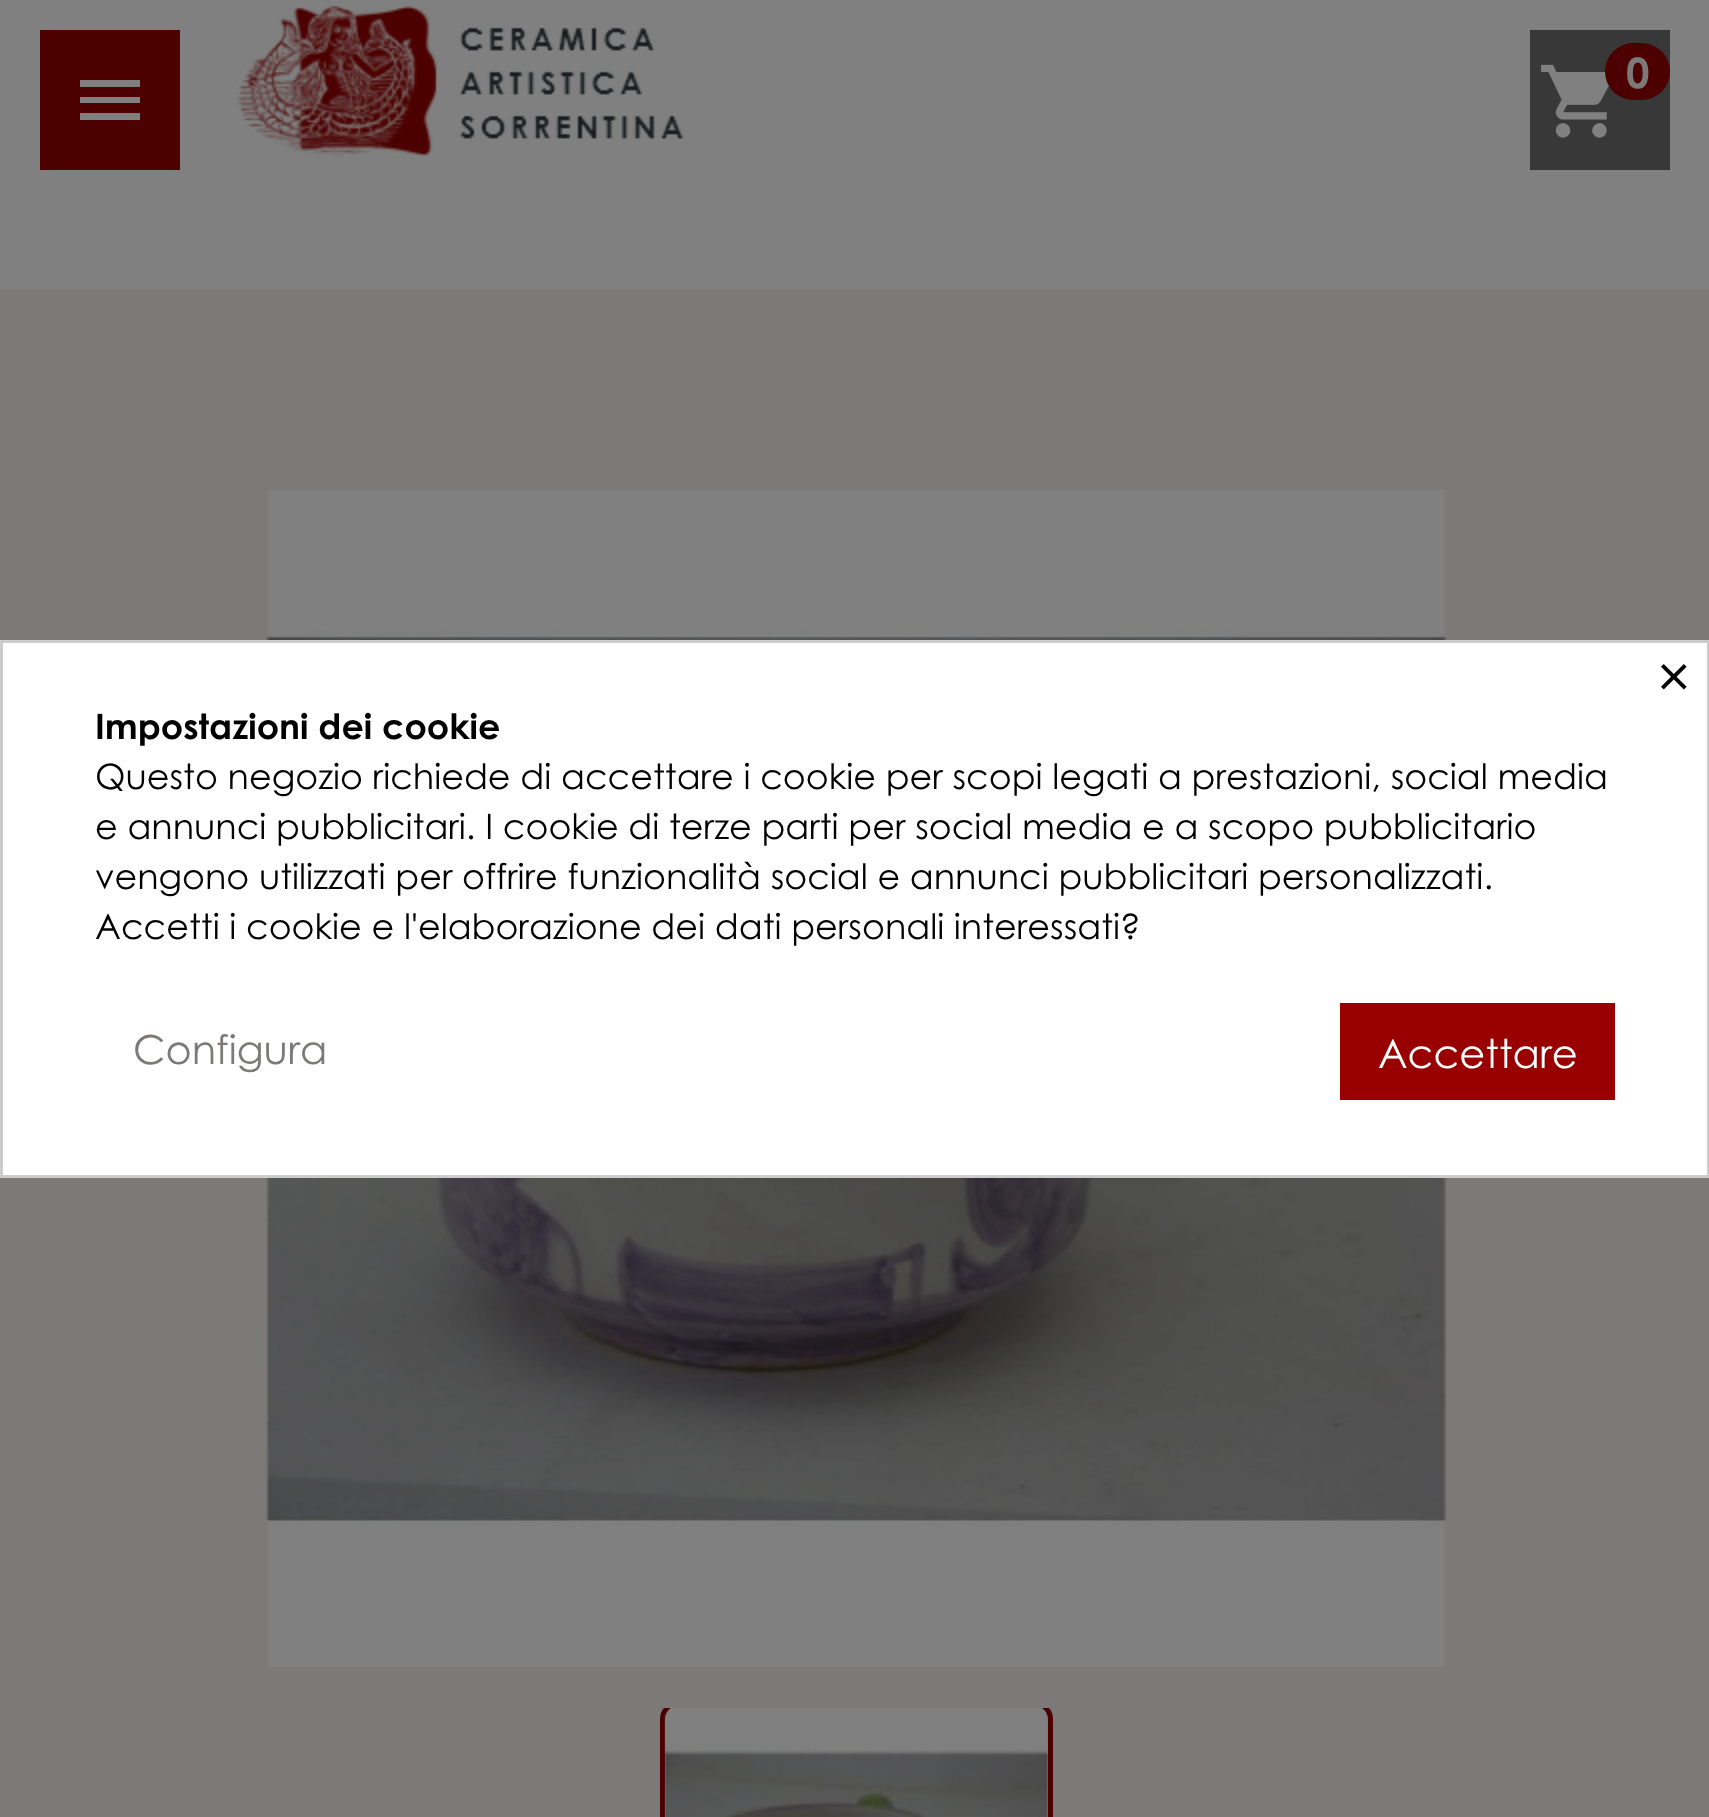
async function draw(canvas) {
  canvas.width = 1709;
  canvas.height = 1817;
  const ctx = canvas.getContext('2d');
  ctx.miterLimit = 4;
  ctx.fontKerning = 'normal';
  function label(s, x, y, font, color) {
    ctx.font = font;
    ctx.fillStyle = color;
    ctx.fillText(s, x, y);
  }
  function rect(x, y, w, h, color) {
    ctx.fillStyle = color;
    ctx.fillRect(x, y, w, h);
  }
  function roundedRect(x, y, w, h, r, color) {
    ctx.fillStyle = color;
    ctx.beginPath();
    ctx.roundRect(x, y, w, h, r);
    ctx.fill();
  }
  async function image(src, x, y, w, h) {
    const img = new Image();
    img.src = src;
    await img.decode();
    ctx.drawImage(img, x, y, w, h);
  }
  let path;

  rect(0, 0, 1709, 1817, '#7b7a78');
  rect(0, 0, 1709, 290, '#808080');
  await image('assets/img1.png', 237, 6, 447, 151);
  rect(40, 30, 140, 140, '#4d0000');
  ctx.fillStyle = '#808080';
  path = new Path2D('M80 80H140V87H80ZM80 103V97H140V103ZM80 120V113H140V120Z');
  ctx.fill(path);
  rect(1530, 30, 140, 140, '#383838');
  await image('assets/img2.png', 1541, 64, 68, 74);
  roundedRect(1605, 43, 65, 57, 28.5, '#4d0000');
  label('0', 1626, 88, 'bold 42px Century Gothic', '#7b7a78');
  await image('assets/img3.png', 266, 490, 1181, 1177);
  ctx.fillStyle = '#4d0000';
  path = new Path2D('M663 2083C661 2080 660 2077 660 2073V1720C660 1715 661 1711 664 1708H671C667 1711 665 1715 665 1720V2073C665 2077 666 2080 669 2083ZM1049 1708C1052 1711 1053 1715 1053 1720V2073C1053 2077 1052 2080 1050 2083H1044C1047 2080 1048 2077 1048 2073V1720C1048 1715 1046 1711 1042 1708Z');
  ctx.fill(path, 'evenodd');
  await image('assets/img4.png', 664, 1708, 384, 109);
  ctx.fillStyle = '#fff';
  ctx.beginPath();
  ctx.rect(1.5, 641.5, 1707, 535);
  ctx.fill();
  ctx.strokeStyle = '#ccc';
  ctx.lineWidth = 3;
  ctx.stroke();
  label('×', 1655, 699, '62px Century Gothic', '#000');
  label('Impostazioni dei cookie', 95, 739, 'bold 35px Century Gothic', '#000');
  label('Questo negozio richiede di accettare i cookie per scopi legati a prestazioni, social media', 95, 789, '35px Century Gothic', '#000');
  label('e annunci pubblicitari. I cookie di terze parti per social media e a scopo pubblicitario', 95, 839, '35px Century Gothic', '#000');
  label('vengono utilizzati per offrire funzionalità social e annunci pubblicitari personalizzati.', 95, 889, '35px Century Gothic', '#000');
  label('Accetti i cookie e l\'elaborazione dei dati personali interessati?', 95, 939, '35px Century Gothic', '#000');
  label('Configura', 133, 1064, '40px Century Gothic', '#7b7a78');
  rect(1340, 1003, 275, 97, '#900');
  label('Accettare', 1378, 1068, '40px Century Gothic', '#fff');
}

draw(document.querySelector('canvas'));
